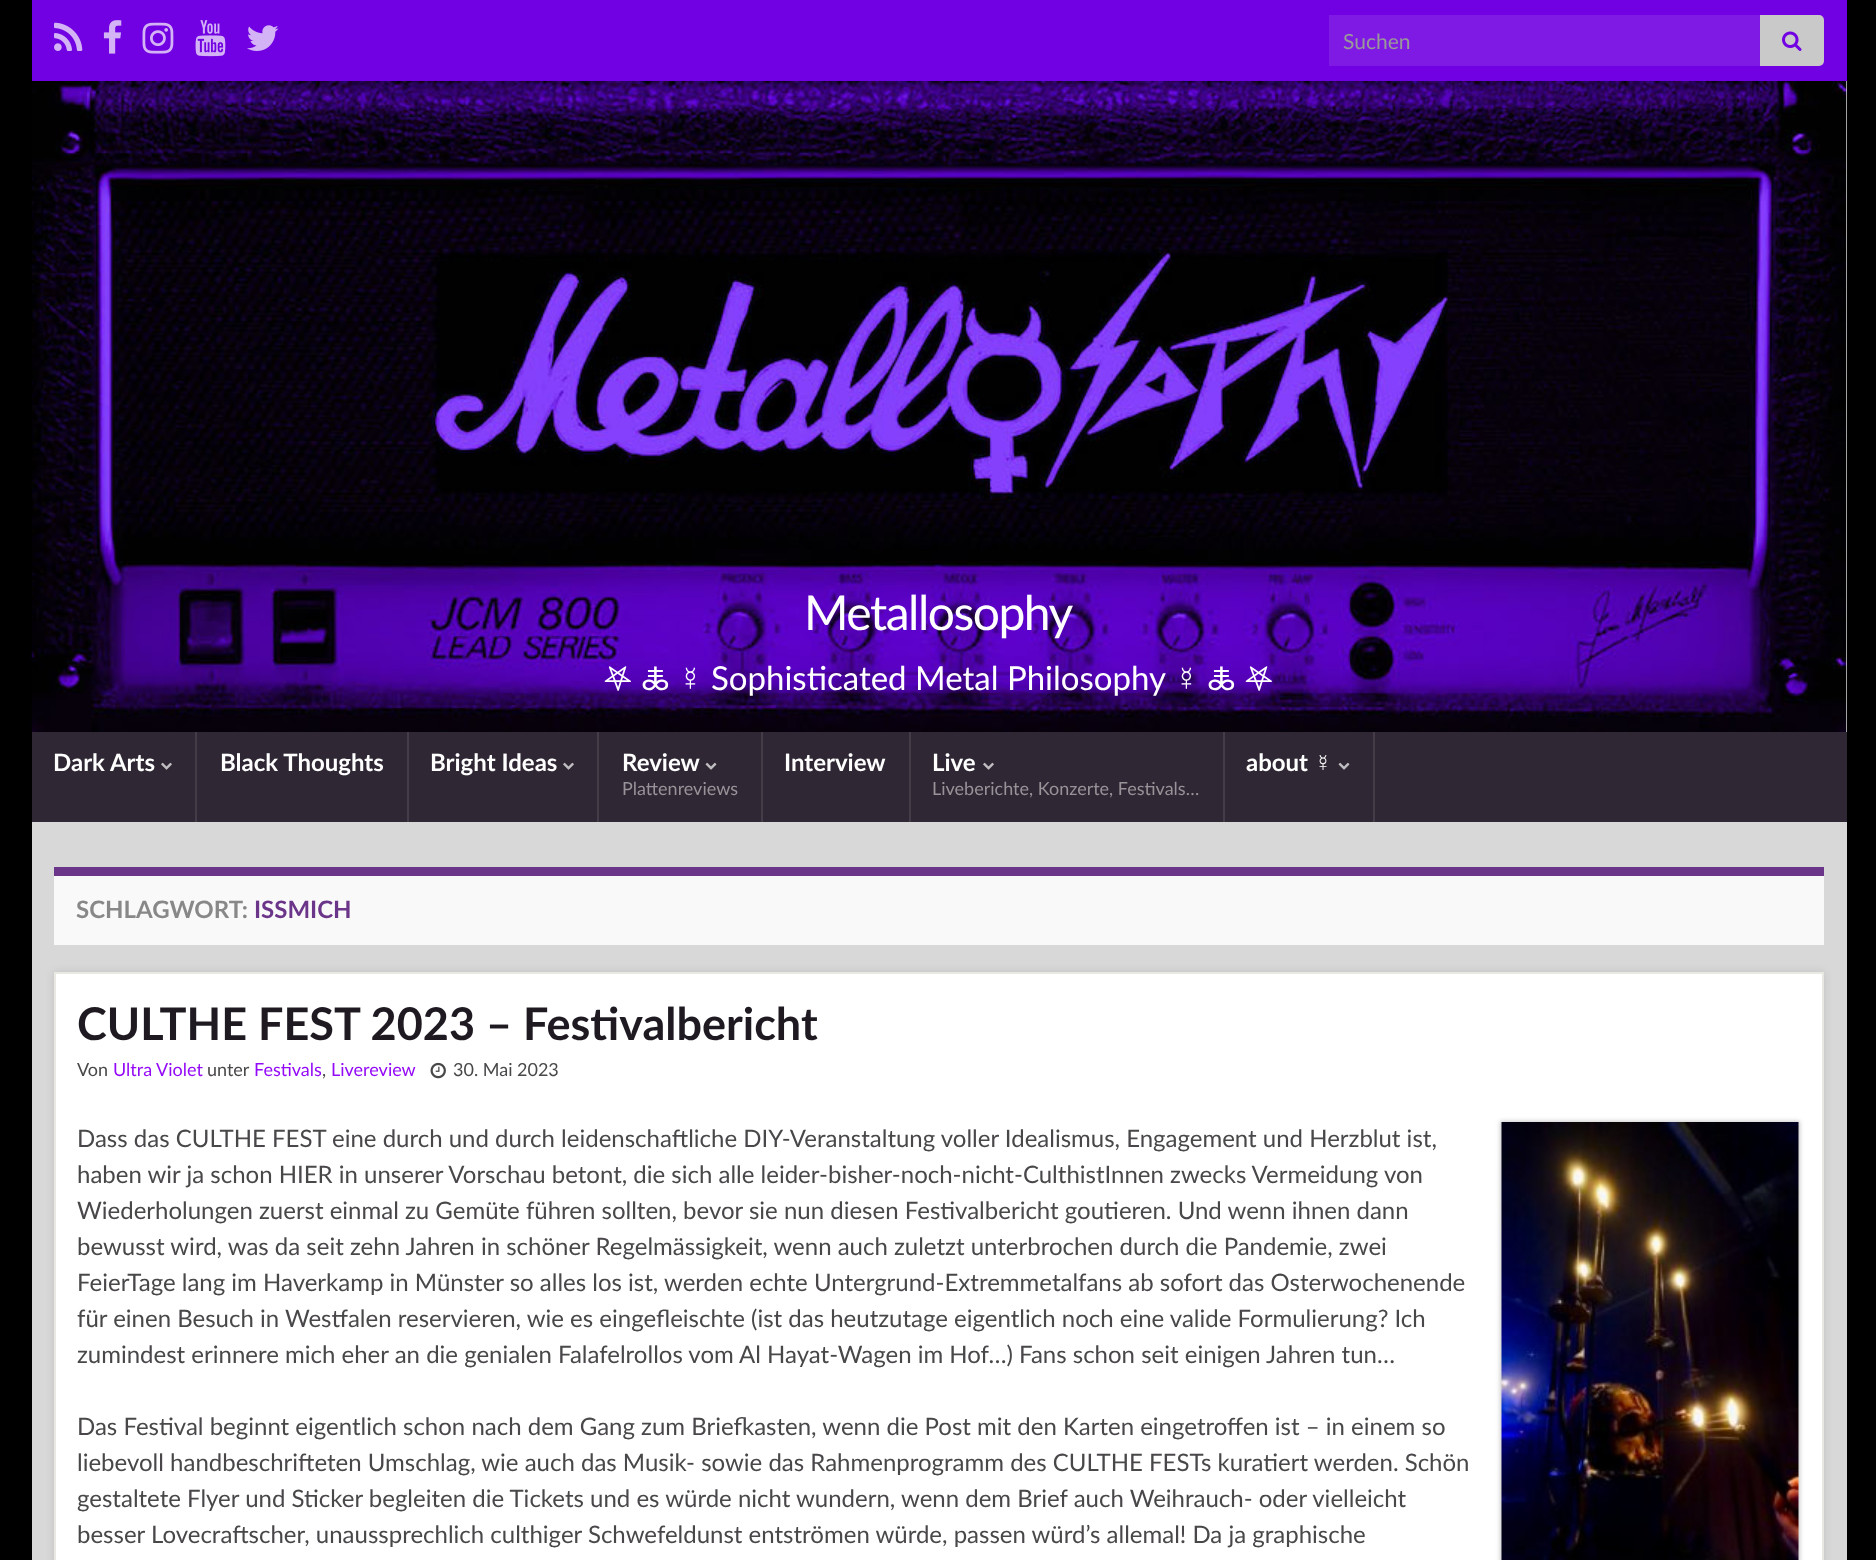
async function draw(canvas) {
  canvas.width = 1876;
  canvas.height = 1560;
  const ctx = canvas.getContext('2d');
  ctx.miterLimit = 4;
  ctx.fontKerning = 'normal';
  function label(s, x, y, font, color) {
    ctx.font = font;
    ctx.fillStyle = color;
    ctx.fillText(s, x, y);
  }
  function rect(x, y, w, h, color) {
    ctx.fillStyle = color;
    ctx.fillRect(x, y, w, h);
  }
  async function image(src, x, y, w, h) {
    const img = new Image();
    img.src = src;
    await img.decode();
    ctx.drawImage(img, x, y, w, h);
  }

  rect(0, 0, 1876, 1560, '#000');
  rect(32, 0, 1815, 81, '#7100e2');
  await image('assets/img1.png', 54, 22, 29, 29);
  await image('assets/img2.png', 103, 20, 19, 34);
  await image('assets/img3.png', 142, 22, 32, 32);
  await image('assets/img4.png', 195, 20, 31, 37);
  await image('assets/img5.png', 247, 25, 32, 26);
  rect(1329, 15, 431, 51, '#7f1ae5');
  label('Suchen', 1343, 49, '21px Lato', '#999');
  ctx.fillStyle = '#c9c9c9';
  ctx.beginPath();
  ctx.roundRect(1760, 15, 64, 51, [0, 5, 5, 0]);
  ctx.fill();
  await image('assets/img6.png', 1782, 31, 20, 20);
  rect(1846, 81, 1, 651, '#d8d8d8');
  await image('assets/img7.png', 31, 81, 1816, 651);
  rect(32, 732, 1815, 90, '#2f2733');
  ctx.letterSpacing = '-1.5px';
  label('Metallosophy', 804, 630, '48px Lato', '#fff');
  ctx.letterSpacing = '0px';
  label('𖤐', 603, 690, '33px Noto Sans Bamum', '#fff');
  label('🜏', 641, 690, '33px Noto Sans Symbols', '#fff');
  label('☿', 678, 690, '33px Liberation Sans', '#fff');
  label('Sophisticated Metal Philosophy', 711, 690, '33px Lato', '#fff');
  label('☿', 1174, 690, '33px Liberation Sans', '#fff');
  label('🜏', 1207, 690, '33px Noto Sans Symbols', '#fff');
  label('𖤐', 1244, 690, '33px Noto Sans Bamum', '#fff');
  rect(195, 732, 2, 90, '#443d47');
  label('Dark Arts', 53, 771, 'bold 24px Lato', '#fff');
  await image('assets/img8.png', 161, 762, 11, 8);
  rect(407, 732, 2, 90, '#443d47');
  label('Black Thoughts', 220, 771, 'bold 24px Lato', '#fff');
  rect(597, 732, 2, 90, '#443d47');
  label('Bright Ideas', 430, 771, 'bold 24px Lato', '#fff');
  await image('assets/img8.png', 563, 762, 11, 8);
  rect(761, 732, 2, 90, '#443d47');
  label('Review', 622, 771, 'bold 24px Lato', '#fff');
  await image('assets/img9.png', 705, 762, 12, 8);
  label('Plattenreviews', 622, 795, '18px Lato', '#979399');
  rect(909, 732, 2, 90, '#443d47');
  label('Interview', 784, 771, 'bold 24px Lato', '#fff');
  rect(1223, 732, 2, 90, '#443d47');
  label('Live', 932, 771, 'bold 24px Lato', '#fff');
  await image('assets/img8.png', 983, 762, 11, 8);
  label('Liveberichte, Konzerte, Festivals…', 932, 795, '18px Lato', '#979399');
  rect(1373, 732, 2, 90, '#443d47');
  label('about', 1246, 771, 'bold 24px Lato', '#fff');
  label('☿', 1314, 771, 'bold 24px Liberation Sans', '#fff');
  await image('assets/img9.png', 1338, 762, 12, 8);
  rect(32, 822, 1815, 738, '#d8d8d8');
  rect(54, 876, 1770, 69, '#f9f9f9');
  rect(54, 867, 1770, 9, '#6b3589');
  label('SCHLAGWORT:', 76, 918, 'bold 24px Lato', '#888');
  label('ISSMICH', 254, 918, 'bold 24px Lato', '#6b3589');
  ctx.fillStyle = '#0000001a';
  ctx.filter = 'blur(4px)';
  ctx.beginPath();
  ctx.rect(54, 972, 1770, 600);
  ctx.fill();
  ctx.filter = 'none';
  ctx.fillStyle = '#fff';
  ctx.beginPath();
  ctx.rect(55, 973, 1768, 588);
  ctx.fill();
  ctx.strokeStyle = '#e9e8e3';
  ctx.lineWidth = 2;
  ctx.stroke();
  label('CULTHE FEST 2023 – Festivalbericht', 77, 1040, 'bold 45px Lato', '#1f1a22');
  label('Von', 77, 1076, '18px Lato', '#4a474b');
  label('Ultra Violet', 113, 1076, '18px Lato', '#940af7');
  label('unter', 207, 1076, '18px Lato', '#4a474b');
  label('Festivals', 254, 1076, '18px Lato', '#940af7');
  label(',', 322, 1076, '18px Lato', '#4a474b');
  label('Livereview', 331, 1076, '18px Lato', '#940af7');
  await image('assets/img10.png', 430, 1062, 16, 17);
  label('30. Mai 2023', 453, 1076, '18px Lato', '#4a474b');
  label('Dass das CULTHE FEST eine durch und durch leidenschaftliche DIY-Veranstaltung voller Idealismus, Engagement und Herzblut ist,', 77, 1147, '24px Lato', '#4a474b');
  label('haben wir ja schon HIER in unserer Vorschau betont, die sich alle leider-bisher-noch-nicht-CulthistInnen zwecks Vermeidung von', 77, 1183, '24px Lato', '#4a474b');
  label('Wiederholungen zuerst einmal zu Gemüte führen sollten, bevor sie nun diesen Festivalbericht goutieren. Und wenn ihnen dann', 77, 1219, '24px Lato', '#4a474b');
  label('bewusst wird, was da seit zehn Jahren in schöner Regelmässigkeit, wenn auch zuletzt unterbrochen durch die Pandemie, zwei', 77, 1255, '24px Lato', '#4a474b');
  label('FeierTage lang im Haverkamp in Münster so alles los ist, werden echte Untergrund-Extremmetalfans ab sofort das Osterwochenende', 77, 1291, '24px Lato', '#4a474b');
  label('für einen Besuch in Westfalen reservieren, wie es eingefleischte (ist das heutzutage eigentlich noch eine valide Formulierung? Ich', 77, 1327, '24px Lato', '#4a474b');
  label('zumindest erinnere mich eher an die genialen Falafelrollos vom Al Hayat-Wagen im Hof…) Fans schon seit einigen Jahren tun…', 77, 1363, '24px Lato', '#4a474b');
  ctx.fillStyle = '#00000033';
  ctx.filter = 'blur(2px)';
  ctx.beginPath();
  ctx.rect(1500, 1121, 300, 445);
  ctx.fill();
  ctx.filter = 'none';
  await image('assets/img11.png', 1501, 1122, 298, 438);
  label('Das Festival beginnt eigentlich schon nach dem Gang zum Briefkasten, wenn die Post mit den Karten eingetroffen ist – in einem so', 77, 1435, '24px Lato', '#4a474b');
  label('liebevoll handbeschrifteten Umschlag, wie auch das Musik- sowie das Rahmenprogramm des CULTHE FESTs kuratiert werden. Schön', 77, 1471, '24px Lato', '#4a474b');
  label('gestaltete Flyer und Sticker begleiten die Tickets und es würde nicht wundern, wenn dem Brief auch Weihrauch- oder vielleicht', 77, 1507, '24px Lato', '#4a474b');
  label('besser Lovecraftscher, unaussprechlich culthiger Schwefeldunst entströmen würde, passen würd’s allemal! Da ja graphische', 77, 1543, '24px Lato', '#4a474b');
}

draw(document.querySelector('canvas'));
